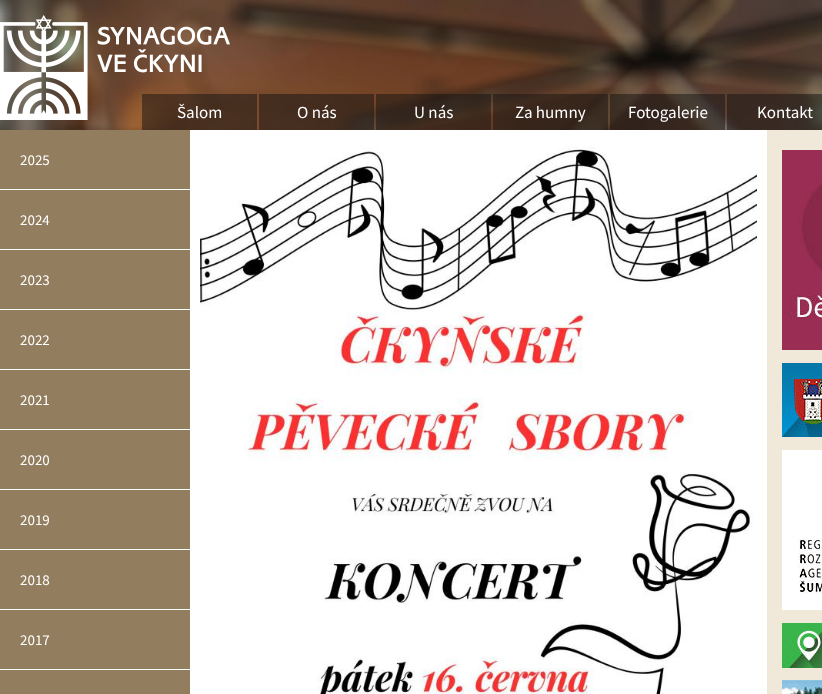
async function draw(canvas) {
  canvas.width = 822;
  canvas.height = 694;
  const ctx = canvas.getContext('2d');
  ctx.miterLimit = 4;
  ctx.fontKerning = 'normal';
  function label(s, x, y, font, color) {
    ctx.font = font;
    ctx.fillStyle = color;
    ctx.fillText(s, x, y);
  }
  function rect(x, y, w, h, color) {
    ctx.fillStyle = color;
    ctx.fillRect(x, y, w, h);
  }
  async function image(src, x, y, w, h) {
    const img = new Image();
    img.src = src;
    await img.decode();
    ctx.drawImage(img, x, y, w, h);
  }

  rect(0, 0, 822, 694, '#fff');
  await image('assets/img1.png', 0, 0, 822, 130);
  rect(142, 94, 115, 36, '#14141480');
  label('Šalom', 177, 118, '17px Source Sans Pro', '#fff');
  await image('assets/img2.png', 0, 15, 230, 105);
  rect(259, 94, 115, 36, '#14141480');
  label('O nás', 297, 118, '17px Source Sans Pro', '#fff');
  rect(376, 94, 115, 36, '#14141480');
  label('U nás', 414, 118, '17px Source Sans Pro', '#fff');
  rect(493, 94, 115, 36, '#14141480');
  label('Za humny', 515, 118, '17px Source Sans Pro', '#fff');
  rect(610, 94, 115, 36, '#14141480');
  label('Fotogalerie', 628, 118, '17px Source Sans Pro', '#fff');
  rect(727, 94, 95, 36, '#14141480');
  label('Kontakt', 757, 118, '17px Source Sans Pro', '#fff');
  rect(767, 130, 55, 564, '#f0e9d9');
  rect(0, 130, 190, 59, '#927d5e');
  label('2025', 20, 165, '15px Source Sans Pro', '#fff');
  rect(0, 190, 190, 59, '#927d5e');
  label('2024', 20, 225, '15px Source Sans Pro', '#fff');
  rect(0, 250, 190, 59, '#927d5e');
  label('2023', 20, 285, '15px Source Sans Pro', '#fff');
  rect(0, 310, 190, 59, '#927d5e');
  label('2022', 20, 345, '15px Source Sans Pro', '#fff');
  rect(0, 370, 190, 59, '#927d5e');
  label('2021', 20, 405, '15px Source Sans Pro', '#fff');
  rect(0, 430, 190, 59, '#927d5e');
  label('2020', 20, 465, '15px Source Sans Pro', '#fff');
  rect(0, 490, 190, 59, '#927d5e');
  label('2019', 20, 525, '15px Source Sans Pro', '#fff');
  rect(0, 550, 190, 59, '#927d5e');
  label('2018', 20, 585, '15px Source Sans Pro', '#fff');
  rect(0, 610, 190, 59, '#927d5e');
  label('2017', 20, 645, '15px Source Sans Pro', '#fff');
  rect(0, 670, 190, 24, '#927d5e');
  await image('assets/img3.png', 200, 146, 557, 548);
  await image('assets/img4.png', 782, 150, 40, 200);
  await image('assets/img5.png', 782, 363, 40, 74);
  await image('assets/img6.png', 782, 450, 40, 160);
  await image('assets/img7.png', 782, 623, 40, 45);
  await image('assets/img8.png', 782, 680, 40, 14);
}

draw(document.querySelector('canvas'));
